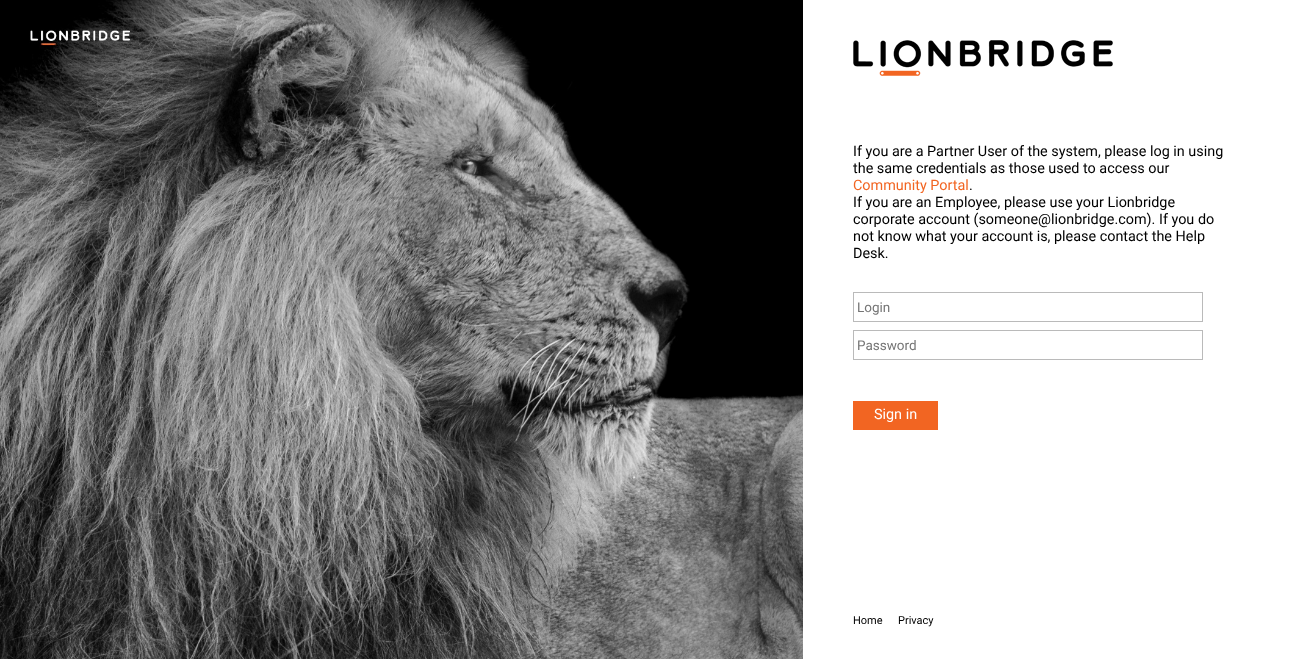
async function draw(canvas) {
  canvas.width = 1303;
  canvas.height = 659;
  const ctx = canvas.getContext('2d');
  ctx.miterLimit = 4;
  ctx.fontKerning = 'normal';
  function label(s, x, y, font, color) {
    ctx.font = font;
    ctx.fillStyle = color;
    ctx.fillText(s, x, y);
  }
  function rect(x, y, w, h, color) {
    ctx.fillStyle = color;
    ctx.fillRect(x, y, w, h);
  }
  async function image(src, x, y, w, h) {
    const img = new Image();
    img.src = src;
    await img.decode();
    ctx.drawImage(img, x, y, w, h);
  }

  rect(0, 0, 1303, 659, '#fff');
  await image('assets/img1.png', 0, 0, 803, 659);
  await image('assets/img2.png', 853, 40, 260, 36);
  label('If you are a Partner User of the system, please log in using', 853, 156, '14.4px Roboto', '#000');
  label('the same credentials as those used to access our', 853, 173, '14.4px Roboto', '#000');
  label('Community Portal', 853, 190, '14.4px Roboto', '#f26522');
  label('.', 969, 190, '14.4px Roboto', '#000');
  label('If you are an Employee, please use your Lionbridge', 853, 207, '14.4px Roboto', '#000');
  label('corporate account (someone@lionbridge.com). If you do', 853, 224, '14.4px Roboto', '#000');
  label('not know what your account is, please contact the Help', 853, 241, '14.4px Roboto', '#000');
  label('Desk.', 853, 258, '14.4px Roboto', '#000');
  ctx.strokeStyle = '#bababa';
  ctx.strokeRect(853.5, 292.5, 349, 29);
  label('Login', 857, 312, '13.5px Roboto', '#757575');
  ctx.strokeRect(853.5, 330.5, 349, 29);
  label('Password', 857, 350, '13.5px Roboto', '#757575');
  rect(853, 401, 85, 29, '#f26522');
  label('Sign in', 874, 419, '14.4px Roboto', '#fff');
  label('Home', 853, 624, '11px Roboto', '#000');
  label('Privacy', 898, 624, '11px Roboto', '#000');
}

draw(document.querySelector('canvas'));
